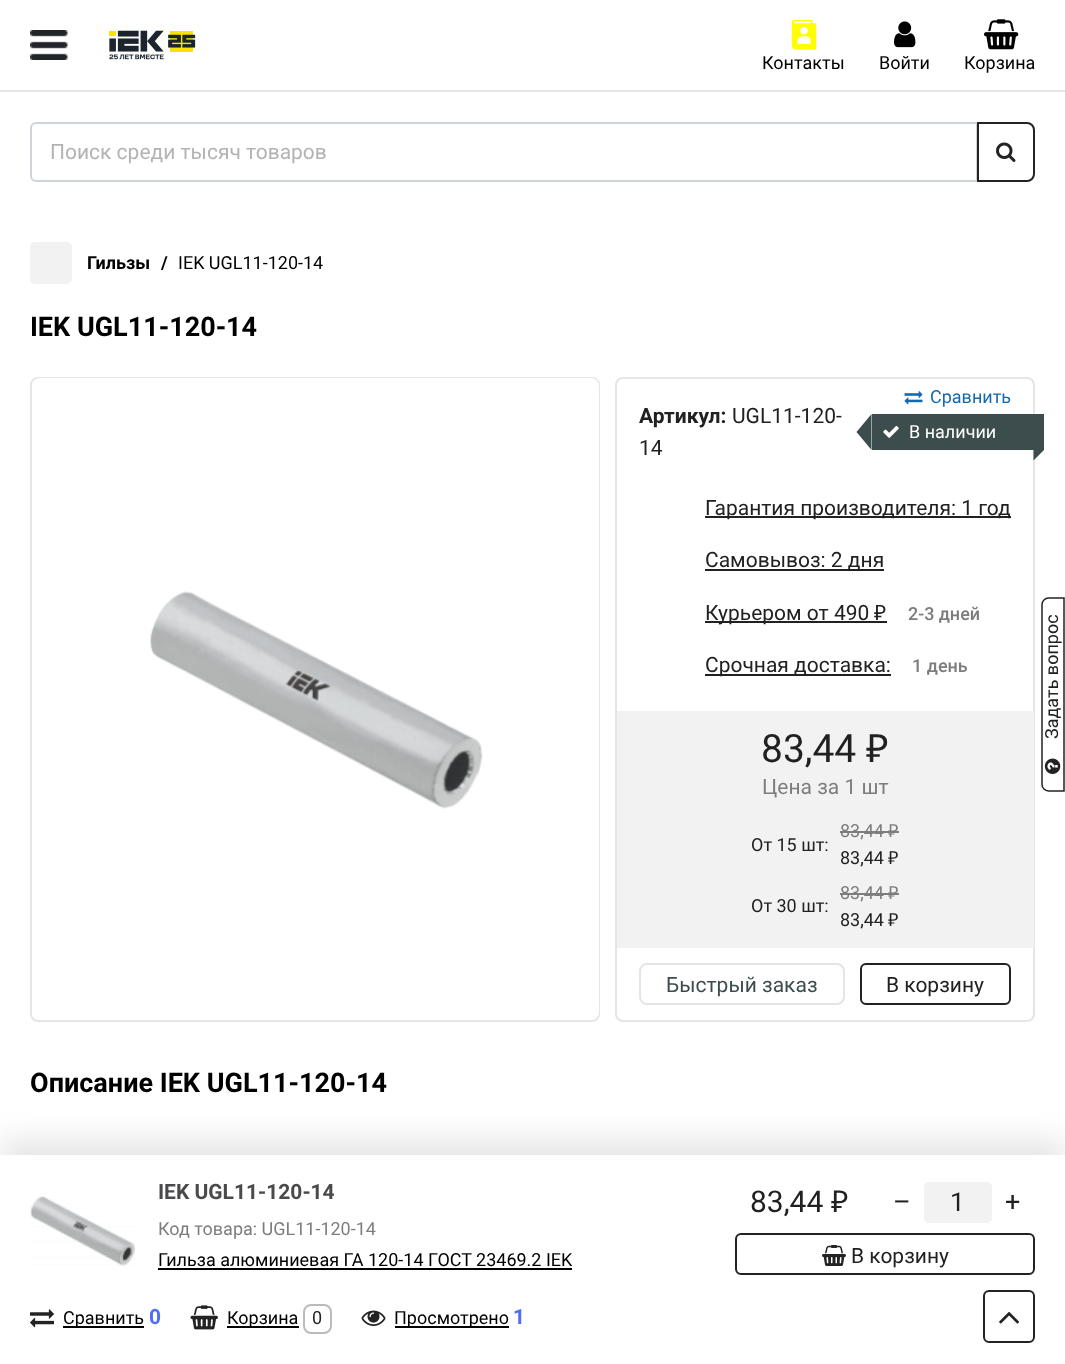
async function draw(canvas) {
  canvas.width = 1065;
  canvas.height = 1364;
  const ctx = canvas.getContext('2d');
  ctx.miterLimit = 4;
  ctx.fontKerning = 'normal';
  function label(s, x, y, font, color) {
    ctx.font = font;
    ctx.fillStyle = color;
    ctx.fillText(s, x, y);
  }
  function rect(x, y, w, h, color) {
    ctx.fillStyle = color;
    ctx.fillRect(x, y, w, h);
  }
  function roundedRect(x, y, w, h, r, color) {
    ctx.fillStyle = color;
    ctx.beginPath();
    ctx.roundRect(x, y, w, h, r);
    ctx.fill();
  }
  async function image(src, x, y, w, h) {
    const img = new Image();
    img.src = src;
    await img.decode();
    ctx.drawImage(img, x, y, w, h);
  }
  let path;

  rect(0, 0, 1065, 1364, '#fff');
  await image('assets/img1.png', 30, 30, 38, 30);
  await image('assets/img2.png', 109, 30, 87, 30);
  await image('assets/img3.png', 791, 20, 26, 30);
  label('Контакты', 762, 69, '18px Roboto', '#000');
  await image('assets/img4.png', 894, 21, 22, 27);
  label('Войти', 879, 69, '18px Roboto', '#000');
  await image('assets/img5.png', 984, 19, 35, 31);
  label('Корзина', 964, 69, '18px Roboto', '#000');
  rect(0, 90, 1065, 2, '#e6e6e6');
  ctx.beginPath();
  ctx.roundRect(31, 123, 946, 58, [5, 0, 0, 5]);
  ctx.strokeStyle = '#ced4da';
  ctx.lineWidth = 2;
  ctx.stroke();
  label('Поиск среди тысяч товаров', 50, 159, '21px Roboto', '#b3b3b3');
  ctx.beginPath();
  ctx.roundRect(978, 123, 56, 58, [0, 7, 7, 0]);
  ctx.strokeStyle = '#232323';
  ctx.stroke();
  await image('assets/img6.png', 996, 142, 20, 20);
  roundedRect(30, 242, 42, 42, 5, '#f2f2f2');
  label('Гильзы', 87, 269, 'bold 18px Roboto', '#000');
  label('/', 161, 269, 'bold 18px Roboto', '#000');
  label('IEK UGL11-120-14', 178, 269, '18px Roboto', '#000');
  label('IEK UGL11-120-14', 30, 336, 'bold 27px Roboto', '#000');
  ctx.beginPath();
  ctx.roundRect(31, 378, 568, 643, 7);
  ctx.strokeStyle = '#e5e5e5';
  ctx.stroke();
  roundedRect(32, 378, 567, 642, 8, '#fff');
  await image('assets/img7.png', 150, 591, 333, 218);
  ctx.beginPath();
  ctx.roundRect(616, 378, 418, 643, 7);
  ctx.stroke();
  await image('assets/img8.png', 904, 391, 19, 14);
  label('Сравнить', 930, 403, '18px Roboto', '#1469af');
  label('Артикул:', 639, 423, 'bold 21px Roboto', '#212121');
  label('UGL11-120-', 732, 423, '21px Roboto', '#212121');
  label('14', 639, 455, '21px Roboto', '#212121');
  rect(872, 414, 172, 36, '#3d4c4d');
  path = new Path2D('M871.5 414V450L856.5 432Z');
  ctx.fill(path);
  await image('assets/img9.png', 883, 426, 16, 12);
  label('В наличии', 909, 438, '18px Roboto', '#fff');
  ctx.fillStyle = '#3d4c4d';
  path = new Path2D('M1033.5 450H1044L1033.5 460.5Z');
  ctx.fill(path);
  rect(705, 516, 306, 2, '#212121');
  label('Гарантия производителя: 1 год', 705, 515, '21px Roboto', '#212121');
  rect(705, 569, 179, 2, '#212121');
  label('Самовывоз: 2 дня', 705, 567, '21px Roboto', '#212121');
  rect(705, 621, 182, 2, '#212121');
  label('Курьером от 490', 705, 620, '21px Roboto', '#212121');
  label('₽', 874, 620, '21px Noto Sans', '#212121');
  label('2-3 дней', 908, 620, '500 18px Roboto', '#7d7d7d');
  rect(705, 674, 186, 2, '#212121');
  label('Срочная доставка:', 705, 672, '21px Roboto', '#212121');
  label('1 день', 912, 672, '500 18px Roboto', '#7d7d7d');
  rect(617, 711, 417, 237, '#f2f2f2');
  label('83,44', 761, 762, '39px Roboto', '#212121');
  label('₽', 866, 762, '39px Noto Sans', '#212121');
  label('Цена за 1 шт', 762, 794, '21px Roboto', '#7d7d7d');
  label('От 15 шт:', 751, 851, '18px Roboto', '#212121');
  label('83,44', 840, 837, '18px Roboto', '#7d7d7d');
  rect(840, 831, 59, 2, '#7d7d7d');
  label('₽', 888, 837, '18px Noto Sans', '#7d7d7d');
  label('83,44', 840, 864, '18px Roboto', '#212121');
  label('₽', 888, 864, '18px Noto Sans', '#212121');
  label('От 30 шт:', 751, 912, '18px Roboto', '#212121');
  label('83,44', 840, 899, '18px Roboto', '#7d7d7d');
  rect(840, 893, 59, 2, '#7d7d7d');
  label('₽', 888, 899, '18px Noto Sans', '#7d7d7d');
  label('83,44', 840, 926, '18px Roboto', '#212121');
  label('₽', 888, 926, '18px Noto Sans', '#212121');
  ctx.beginPath();
  ctx.roundRect(640, 964, 204, 40, 7);
  ctx.stroke();
  label('Быстрый заказ', 666, 992, '21px Roboto', '#3d4c4d');
  ctx.beginPath();
  ctx.roundRect(861, 964, 149, 40, 5);
  ctx.strokeStyle = '#232323';
  ctx.stroke();
  label('В корзину', 886, 992, '21px Roboto', '#212121');
  label('Описание IEK UGL11-120-14', 30, 1092, 'bold 27px Roboto', '#000');
  path = new Path2D('M1042 784.5V604.5C1042 601 1045 598 1048.5 598H1064V791H1048.5C1045 791 1042 788 1042 784.5Z');
  ctx.lineWidth = 1.5;
  ctx.stroke(path);
  ctx.font = '18px Roboto';
  ctx.fillStyle = '#212121';
  ctx.save();
  ctx.translate(1058, 739);
  ctx.rotate(-90 * Math.PI / 180);
  ctx.fillText('Задать вопрос', 0, 0);
  ctx.restore();
  await image('assets/img10.png', 1044, 758, 17, 16);
  ctx.fillStyle = '#0000001a';
  ctx.filter = 'blur(15px)';
  ctx.beginPath();
  ctx.rect(0, 1140, 1065, 210);
  ctx.fill();
  ctx.filter = 'none';
  rect(0, 1155, 1065, 209, '#fff');
  await image('assets/img11.png', 30, 1196, 105, 70);
  label('IEK UGL11-120-14', 158, 1199, 'bold 21px Roboto', '#494a4c');
  label('Код товара: UGL11-120-14', 158, 1235, '18px Roboto', '#7d7d7d');
  label('Гильза алюминиевая ГА 120-14 ГОСТ 23469.2 IEK', 158, 1266, '18px Roboto', '#000');
  rect(158, 1268, 414, 2, '#000');
  label('83,44', 750, 1212, '30px Roboto', '#212121');
  label('₽', 831, 1212, '30px Noto Sans', '#212121');
  label('–', 893, 1211, '27px Roboto', '#212121');
  roundedRect(924, 1182, 68, 41, 5, '#f2f2f2');
  label('1', 950, 1211, '26px Roboto', '#212121');
  label('+', 1005, 1211, '27px Roboto', '#212121');
  ctx.beginPath();
  ctx.roundRect(736, 1234, 298, 40, 5);
  ctx.lineWidth = 2;
  ctx.stroke();
  await image('assets/img12.png', 822, 1245, 24, 21);
  label('В корзину', 851, 1263, '21px Roboto', '#212121');
  await image('assets/img13.png', 30, 1309, 24, 19);
  rect(63, 1326, 81, 2, '#000');
  label('Сравнить', 63, 1324, '18px Roboto', '#000');
  label('0', 149, 1324, 'bold 21px Roboto', '#506df9');
  await image('assets/img14.png', 190, 1305, 28, 25);
  rect(227, 1326, 72, 2, '#000');
  label('Корзина', 227, 1324, '18px Roboto', '#000');
  ctx.beginPath();
  ctx.roundRect(304, 1305, 27, 28, 7);
  ctx.strokeStyle = '#bbb';
  ctx.stroke();
  label('0', 312, 1324, '18px Roboto', '#212121');
  await image('assets/img15.png', 361, 1310, 25, 16);
  rect(395, 1326, 114, 2, '#000');
  label('Просмотрено', 394, 1324, '18px Roboto', '#000');
  label('1', 513, 1324, 'bold 21px Roboto', '#506df9');
  ctx.beginPath();
  ctx.roundRect(984, 1291, 50, 51, 5);
  ctx.strokeStyle = '#232323';
  ctx.stroke();
  await image('assets/img16.png', 999, 1312, 20, 12);
}

draw(document.querySelector('canvas'));
